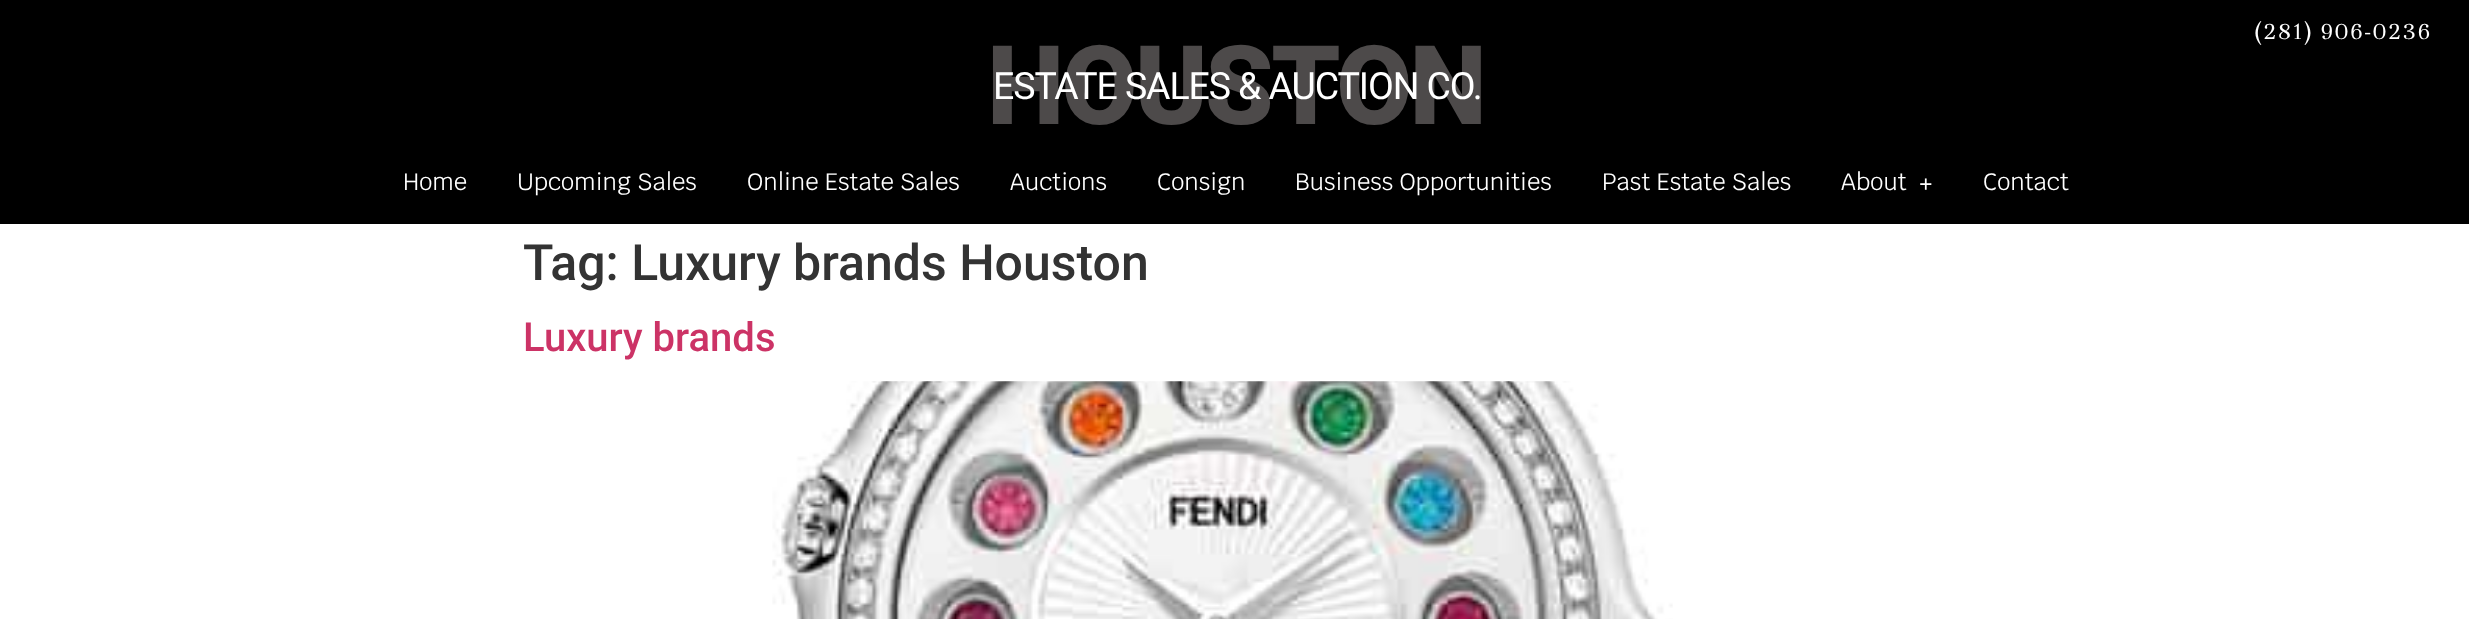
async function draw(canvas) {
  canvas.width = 2469;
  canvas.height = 619;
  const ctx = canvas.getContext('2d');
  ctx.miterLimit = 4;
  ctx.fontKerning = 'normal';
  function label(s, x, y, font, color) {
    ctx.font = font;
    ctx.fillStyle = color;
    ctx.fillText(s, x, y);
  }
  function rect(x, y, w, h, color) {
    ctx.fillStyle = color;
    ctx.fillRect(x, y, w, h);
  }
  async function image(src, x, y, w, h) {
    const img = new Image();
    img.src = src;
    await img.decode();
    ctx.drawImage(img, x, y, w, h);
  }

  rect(0, 0, 2469, 619, '#fff');
  rect(0, 0, 2469, 224, '#000');
  ctx.letterSpacing = '2.1px';
  label('(281) 906-0236', 2255, 39, '25px Unna', '#fff');
  ctx.letterSpacing = '-2.75px';
  label('HOUSTON', 987, 124, '900 110px Roboto', '#4d4a4a');
  ctx.letterSpacing = '-1.1px';
  label('ESTATE SALES & AUCTION CO.', 993, 99, '37.5px Roboto', '#fff');
  ctx.letterSpacing = '0px';
  label('Home', 403, 190, '23.75px Krub', '#fff');
  label('Upcoming Sales', 517, 190, '23.75px Krub', '#fff');
  label('Online Estate Sales', 747, 190, '23.75px Krub', '#fff');
  label('Auctions', 1010, 190, '23.75px Krub', '#fff');
  label('Consign', 1157, 190, '23.75px Krub', '#fff');
  label('Business Opportunities', 1295, 190, '23.75px Krub', '#fff');
  label('Past Estate Sales', 1602, 190, '23.75px Krub', '#fff');
  label('About', 1841, 190, '23.75px Krub', '#fff');
  label('+', 1919, 192, 'bold 23.75px Liberation Serif', '#fff');
  label('Contact', 1983, 190, '23.75px Krub', '#fff');
  label('Tag: Luxury brands Houston', 523, 280, '500 50px Roboto', '#333');
  label('Luxury brands', 523, 351, '500 40px Roboto', '#c36');
  await image('assets/img1.png', 772, 381, 901, 238);
}

draw(document.querySelector('canvas'));
